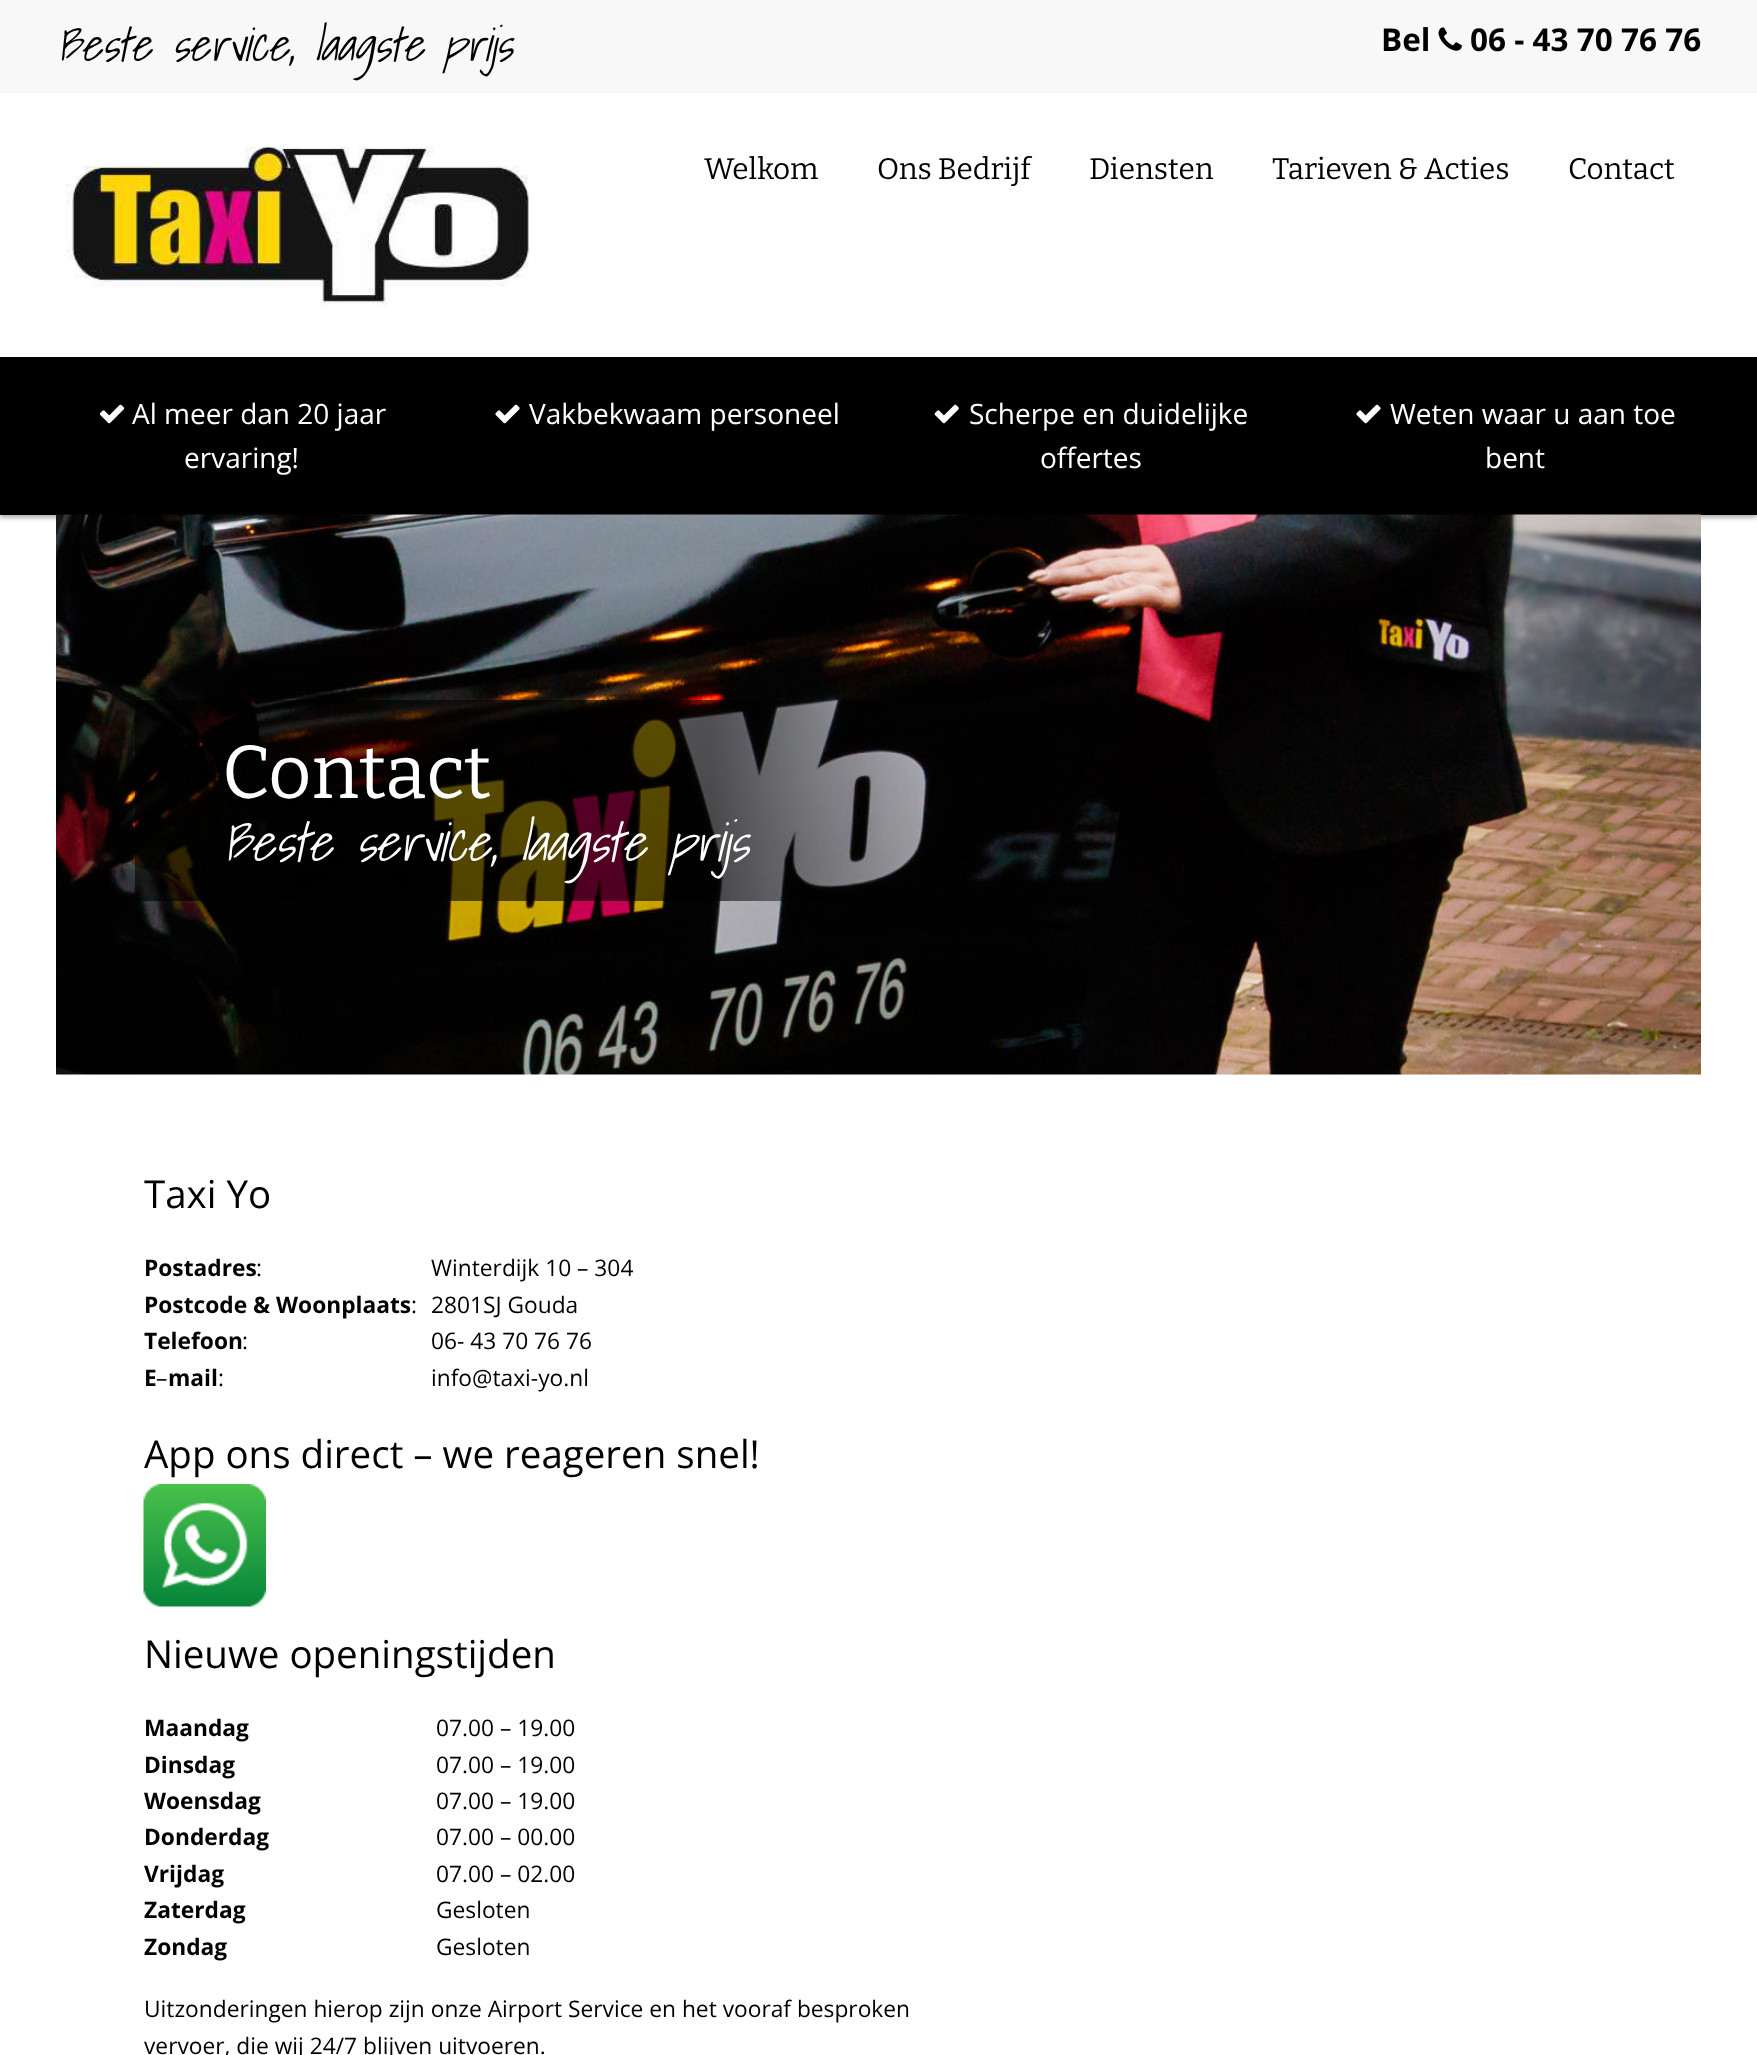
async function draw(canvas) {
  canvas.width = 1757;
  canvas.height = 2055;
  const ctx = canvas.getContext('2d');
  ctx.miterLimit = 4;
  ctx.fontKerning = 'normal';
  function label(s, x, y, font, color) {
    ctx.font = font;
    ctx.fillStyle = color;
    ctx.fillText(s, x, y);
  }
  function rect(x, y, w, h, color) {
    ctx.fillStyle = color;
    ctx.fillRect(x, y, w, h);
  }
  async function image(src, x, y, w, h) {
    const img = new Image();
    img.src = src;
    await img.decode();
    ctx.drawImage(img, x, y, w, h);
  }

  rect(0, 0, 1757, 2055, '#fff');
  rect(0, 0, 1757, 93, '#f8f8f8');
  label('Beste service, laagste prijs', 56, 61, 'italic 300 45.5px Shadows Into Light', '#000');
  label('Bel', 1381, 51, 'bold 31.5px Open Sans', '#000');
  await image('assets/img1.png', 1438, 27, 24, 24);
  label('06 - 43 70 76 76', 1470, 51, 'bold 31.5px Open Sans', '#000');
  await image('assets/img2.png', 66, 146, 463, 161);
  label('Welkom', 704, 179, '100 29.75px Bitter', '#000');
  label('Ons Bedrijf', 877, 179, '100 29.75px Bitter', '#000');
  label('Diensten', 1089, 179, '100 29.75px Bitter', '#000');
  label('Tarieven & Acties', 1272, 179, '100 29.75px Bitter', '#000');
  label('Contact', 1568, 179, '100 29.75px Bitter', '#000');
  ctx.fillStyle = '#0000004d';
  ctx.filter = 'blur(2px)';
  ctx.beginPath();
  ctx.rect(0, 361, 1757, 157);
  ctx.fill();
  ctx.filter = 'none';
  rect(0, 357, 1757, 158, '#000');
  await image('assets/img3.png', 99, 404, 26, 20);
  label('Al meer dan 20 jaar', 132, 424, '28px Open Sans', '#fff');
  label('ervaring!', 184, 468, '28px Open Sans', '#fff');
  await image('assets/img4.png', 495, 404, 25, 20);
  label('Vakbekwaam personeel', 529, 424, '28px Open Sans', '#fff');
  await image('assets/img5.png', 934, 404, 25, 20);
  label('Scherpe en duidelijke', 969, 424, '28px Open Sans', '#fff');
  label('offertes', 1040, 468, '28px Open Sans', '#fff');
  await image('assets/img4.png', 1356, 404, 25, 20);
  label('Weten waar u aan toe', 1390, 424, '28px Open Sans', '#fff');
  label('bent', 1485, 468, '28px Open Sans', '#fff');
  await image('assets/img6.png', 56, 514, 1645, 561);
  label('Contact', 222, 798, '100 75px Bitter', '#fff');
  label('Beste service, laagste prijs', 222, 861, 'italic 300 52.5px Shadows Into Light', '#fff');
  label('Taxi Yo', 144, 1208, '38.5px Open Sans', '#000');
  label('Postadres', 144, 1276, 'bold 22.75px Open Sans', '#000');
  label(':', 256, 1276, '22.75px Open Sans', '#000');
  label('Winterdijk 10 – 304', 431, 1276, '22.75px Open Sans', '#000');
  label('Postcode & Woonplaats', 144, 1313, 'bold 22.75px Open Sans', '#000');
  label(':', 411, 1313, '22.75px Open Sans', '#000');
  label('2801SJ Gouda', 431, 1313, '22.75px Open Sans', '#000');
  label('Telefoon', 144, 1349, 'bold 22.75px Open Sans', '#000');
  label(':', 242, 1349, '22.75px Open Sans', '#000');
  label('06- 43 70 76 76', 431, 1349, '22.75px Open Sans', '#000');
  label('E', 144, 1386, 'bold 22.75px Open Sans', '#000');
  label('–', 156, 1386, '22.75px Open Sans', '#000');
  label('mail', 168, 1386, 'bold 22.75px Open Sans', '#000');
  label(':', 218, 1386, '22.75px Open Sans', '#000');
  label('info@taxi-yo.nl', 431, 1386, '22.75px Open Sans', '#000');
  label('App ons direct – we reageren snel!', 144, 1468, '38.5px Open Sans', '#000');
  await image('assets/img7.png', 143, 1484, 123, 123);
  label('Nieuwe openingstijden', 144, 1668, '38.5px Open Sans', '#000');
  label('Maandag', 144, 1736, 'bold 22.75px Open Sans', '#000');
  label('07.00 – 19.00', 436, 1736, '22.75px Open Sans', '#000');
  label('Dinsdag', 144, 1773, 'bold 22.75px Open Sans', '#000');
  label('07.00 – 19.00', 436, 1773, '22.75px Open Sans', '#000');
  label('Woensdag', 144, 1809, 'bold 22.75px Open Sans', '#000');
  label('07.00 – 19.00', 436, 1809, '22.75px Open Sans', '#000');
  label('Donderdag', 144, 1845, 'bold 22.75px Open Sans', '#000');
  label('07.00 – 00.00', 436, 1845, '22.75px Open Sans', '#000');
  label('Vrijdag', 144, 1882, 'bold 22.75px Open Sans', '#000');
  label('07.00 – 02.00', 436, 1882, '22.75px Open Sans', '#000');
  label('Zaterdag', 144, 1918, 'bold 22.75px Open Sans', '#000');
  label('Gesloten', 436, 1918, '22.75px Open Sans', '#000');
  label('Zondag', 144, 1955, 'bold 22.75px Open Sans', '#000');
  label('Gesloten', 436, 1955, '22.75px Open Sans', '#000');
  label('Uitzonderingen hierop zijn onze Airport Service en het vooraf besproken', 144, 2017, '22.75px Open Sans', '#000');
  label('vervoer, die wij 24/7 blijven uitvoeren.', 144, 2054, '22.75px Open Sans', '#000');
}

draw(document.querySelector('canvas'));
